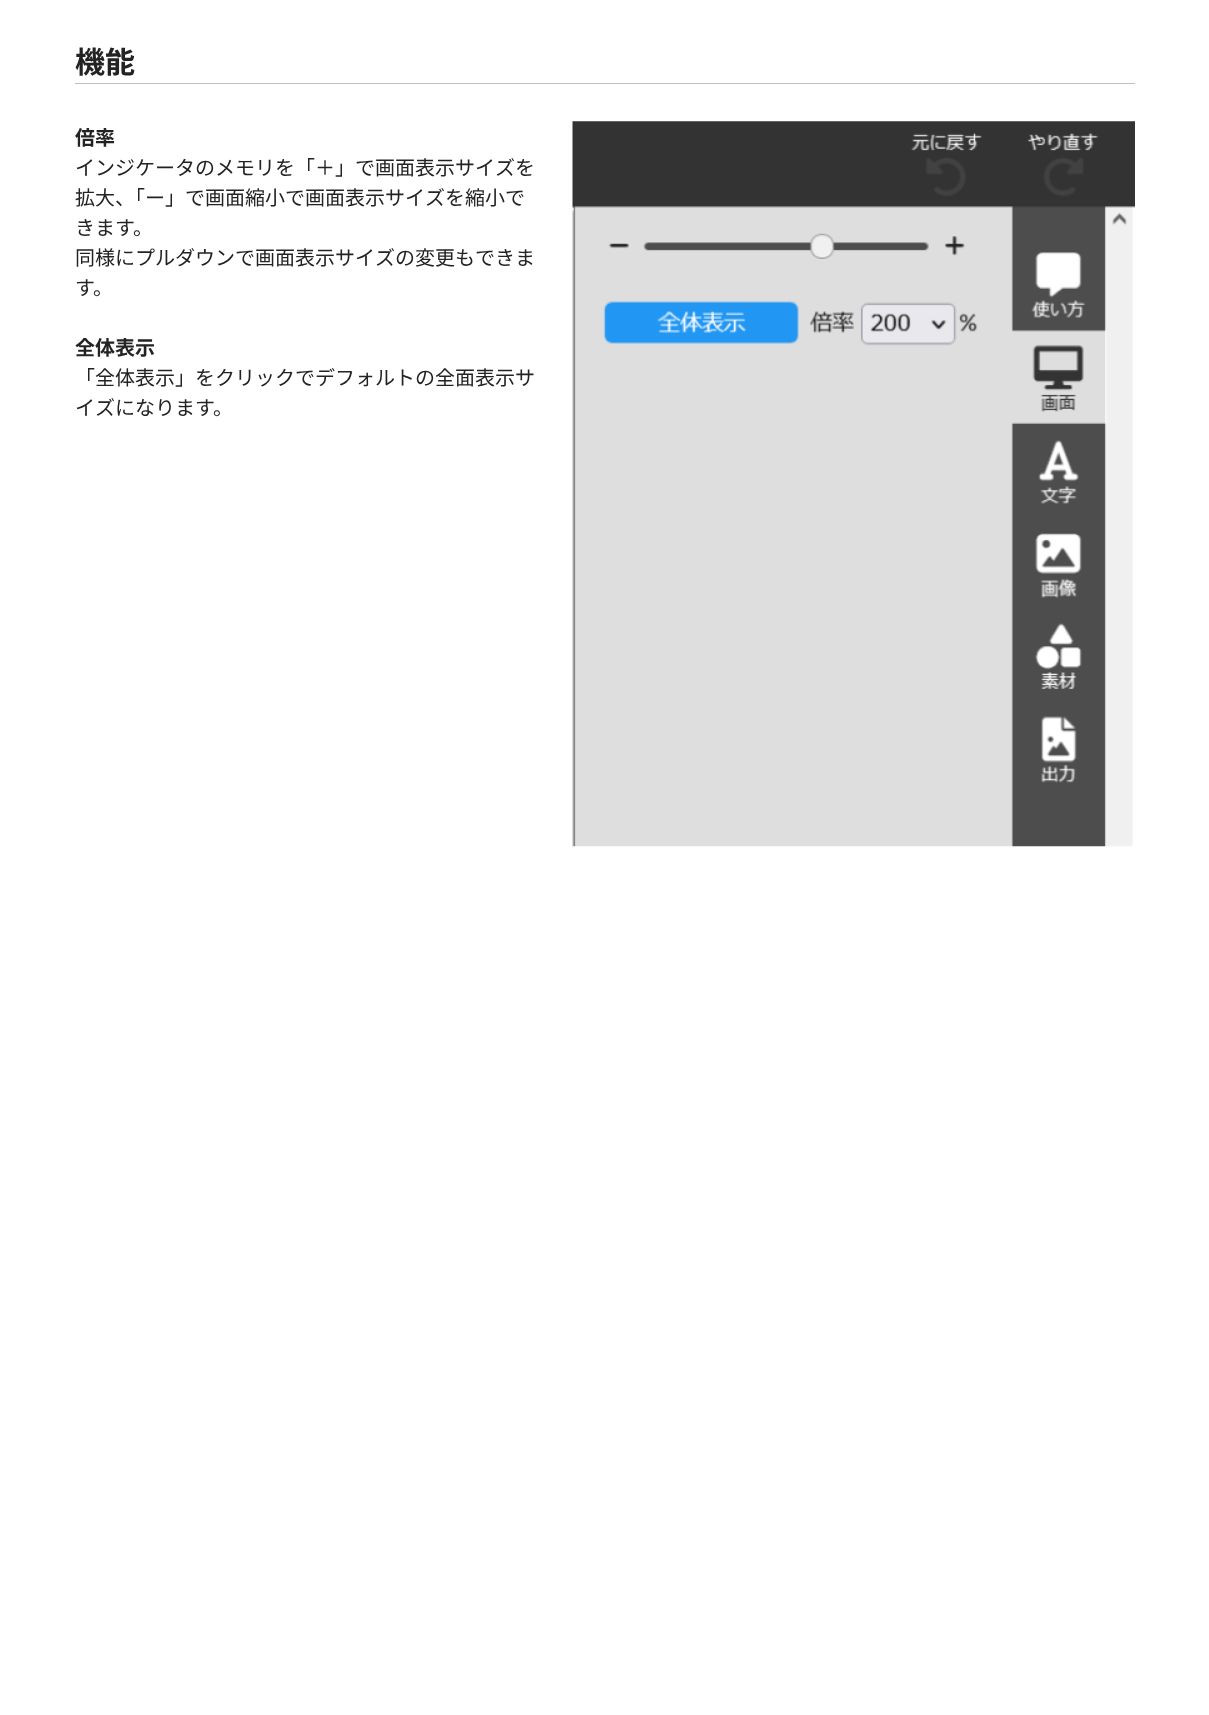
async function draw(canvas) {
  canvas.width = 1209;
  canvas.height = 1715;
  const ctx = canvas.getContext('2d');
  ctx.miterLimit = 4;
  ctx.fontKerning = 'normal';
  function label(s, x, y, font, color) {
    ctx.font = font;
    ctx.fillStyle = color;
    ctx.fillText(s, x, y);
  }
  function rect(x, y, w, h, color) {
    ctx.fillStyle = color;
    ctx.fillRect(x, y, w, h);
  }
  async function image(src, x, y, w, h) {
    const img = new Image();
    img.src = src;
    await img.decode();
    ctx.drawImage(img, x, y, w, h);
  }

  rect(0, 0, 1209, 1715, '#fff');
  rect(75, 83, 1060, 1, '#c1c0c0');
  label('機能', 75, 73, 'bold 30px Noto Sans JP', '#232323');
  label('倍率', 75, 145, 'bold 20px Noto Sans JP', '#232323');
  label('インジケータのメモリを「＋」で画面表示サイズを', 75, 175, '20px Noto Sans JP', '#232323');
  label('拡大、「ー」で画面縮小で画面表示サイズを縮小で', 75, 205, '20px Noto Sans JP', '#232323');
  label('きます。', 75, 235, '20px Noto Sans JP', '#232323');
  label('同様にプルダウンで画面表示サイズの変更もできま', 75, 265, '20px Noto Sans JP', '#232323');
  label('す。', 75, 295, '20px Noto Sans JP', '#232323');
  label('全体表示', 75, 355, 'bold 20px Noto Sans JP', '#232323');
  label('「全体表示」をクリックでデフォルトの全面表示サ', 75, 385, '20px Noto Sans JP', '#232323');
  label('イズになります。', 75, 415, '20px Noto Sans JP', '#232323');
  await image('assets/img1.png', 572, 121, 563, 726);
}

draw(document.querySelector('canvas'));
